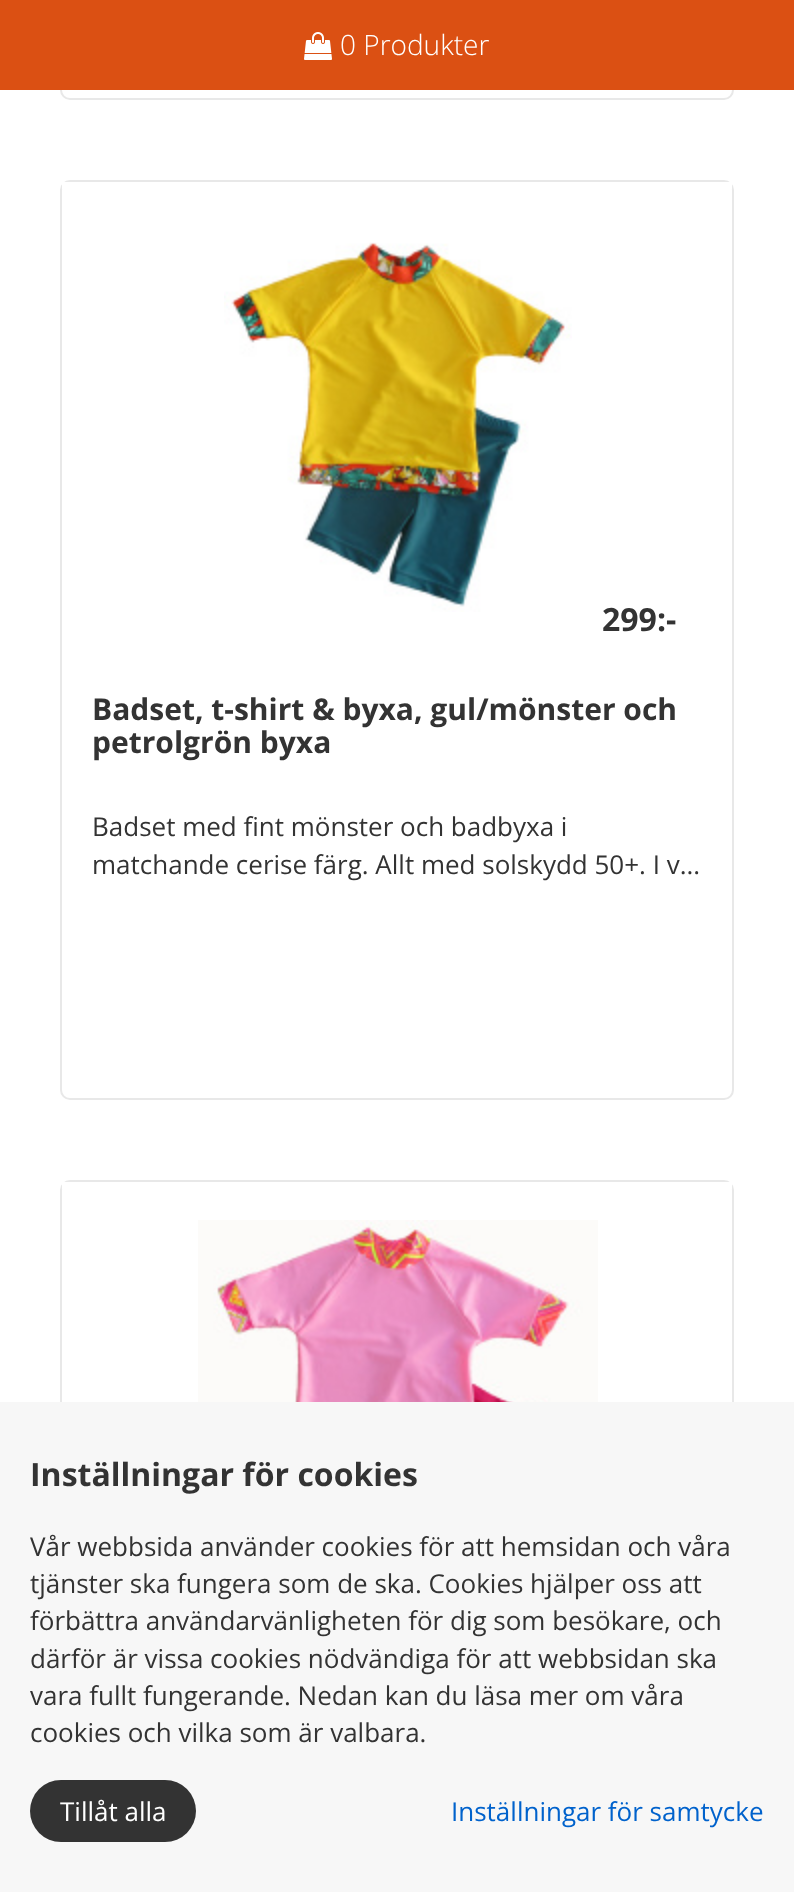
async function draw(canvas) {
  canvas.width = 794;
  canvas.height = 1892;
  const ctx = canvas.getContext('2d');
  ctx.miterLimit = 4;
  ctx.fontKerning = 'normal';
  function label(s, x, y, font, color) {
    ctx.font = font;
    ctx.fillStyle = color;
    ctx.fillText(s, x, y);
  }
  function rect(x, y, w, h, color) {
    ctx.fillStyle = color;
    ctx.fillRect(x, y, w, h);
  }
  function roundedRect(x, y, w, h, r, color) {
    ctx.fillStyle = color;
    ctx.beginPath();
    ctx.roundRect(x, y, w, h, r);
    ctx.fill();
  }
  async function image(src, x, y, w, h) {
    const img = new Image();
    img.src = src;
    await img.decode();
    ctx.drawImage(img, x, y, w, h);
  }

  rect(0, 0, 794, 1892, '#fff');
  ctx.beginPath();
  ctx.roundRect(61, -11, 672, 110, 9);
  ctx.strokeStyle = '#e8e8e8';
  ctx.lineWidth = 2;
  ctx.stroke();
  rect(0, 0, 794, 90, '#db5013');
  await image('assets/img1.png', 304, 32, 28, 28);
  label('0 Produkter', 340, 55, '300 28px Open Sans', '#fff');
  ctx.beginPath();
  ctx.roundRect(61, 181, 672, 918, 9);
  ctx.stroke();
  rect(62, 182, 670, 7, '#fff');
  await image('assets/img2.png', 224, 242, 348, 370);
  label('299:-', 602, 631, 'bold 32px Open Sans', '#333');
  label('Badset, t-shirt & byxa, gul/mönster och', 92, 720, 'bold 30px Open Sans', '#333');
  label('petrolgrön byxa', 92, 753, 'bold 30px Open Sans', '#333');
  label('Badset med fint mönster och badbyxa i', 92, 836, '26px Open Sans', '#333');
  label('matchande cerise färg. Allt med solskydd 50+. I v...', 92, 874, '26px Open Sans', '#333');
  ctx.beginPath();
  ctx.roundRect(61, 1181, 672, 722, 9);
  ctx.stroke();
  rect(62, 1182, 670, 7, '#fff');
  await image('assets/img3.png', 198, 1220, 400, 182);
  rect(0, 1402, 794, 490, '#f7f7f7');
  label('Inställningar för cookies', 30, 1486, 'bold 32px Open Sans', '#333');
  label('Vår webbsida använder cookies för att hemsidan och våra', 30, 1556, '26px Open Sans', '#333');
  label('tjänster ska fungera som de ska. Cookies hjälper oss att', 30, 1593, '26px Open Sans', '#333');
  label('förbättra användarvänligheten för dig som besökare, och', 30, 1630, '26px Open Sans', '#333');
  label('därför är vissa cookies nödvändiga för att webbsidan ska', 30, 1668, '26px Open Sans', '#333');
  label('vara fullt fungerande. Nedan kan du läsa mer om våra', 30, 1705, '26px Open Sans', '#333');
  label('cookies och vilka som är valbara.', 30, 1742, '26px Open Sans', '#333');
  roundedRect(30, 1780, 166, 62, 31, '#333');
  label('Tillåt alla', 60, 1821, '26px Open Sans', '#fff');
  label('Inställningar för samtycke', 451, 1821, '26px Open Sans', '#0062cc');
}

draw(document.querySelector('canvas'));
